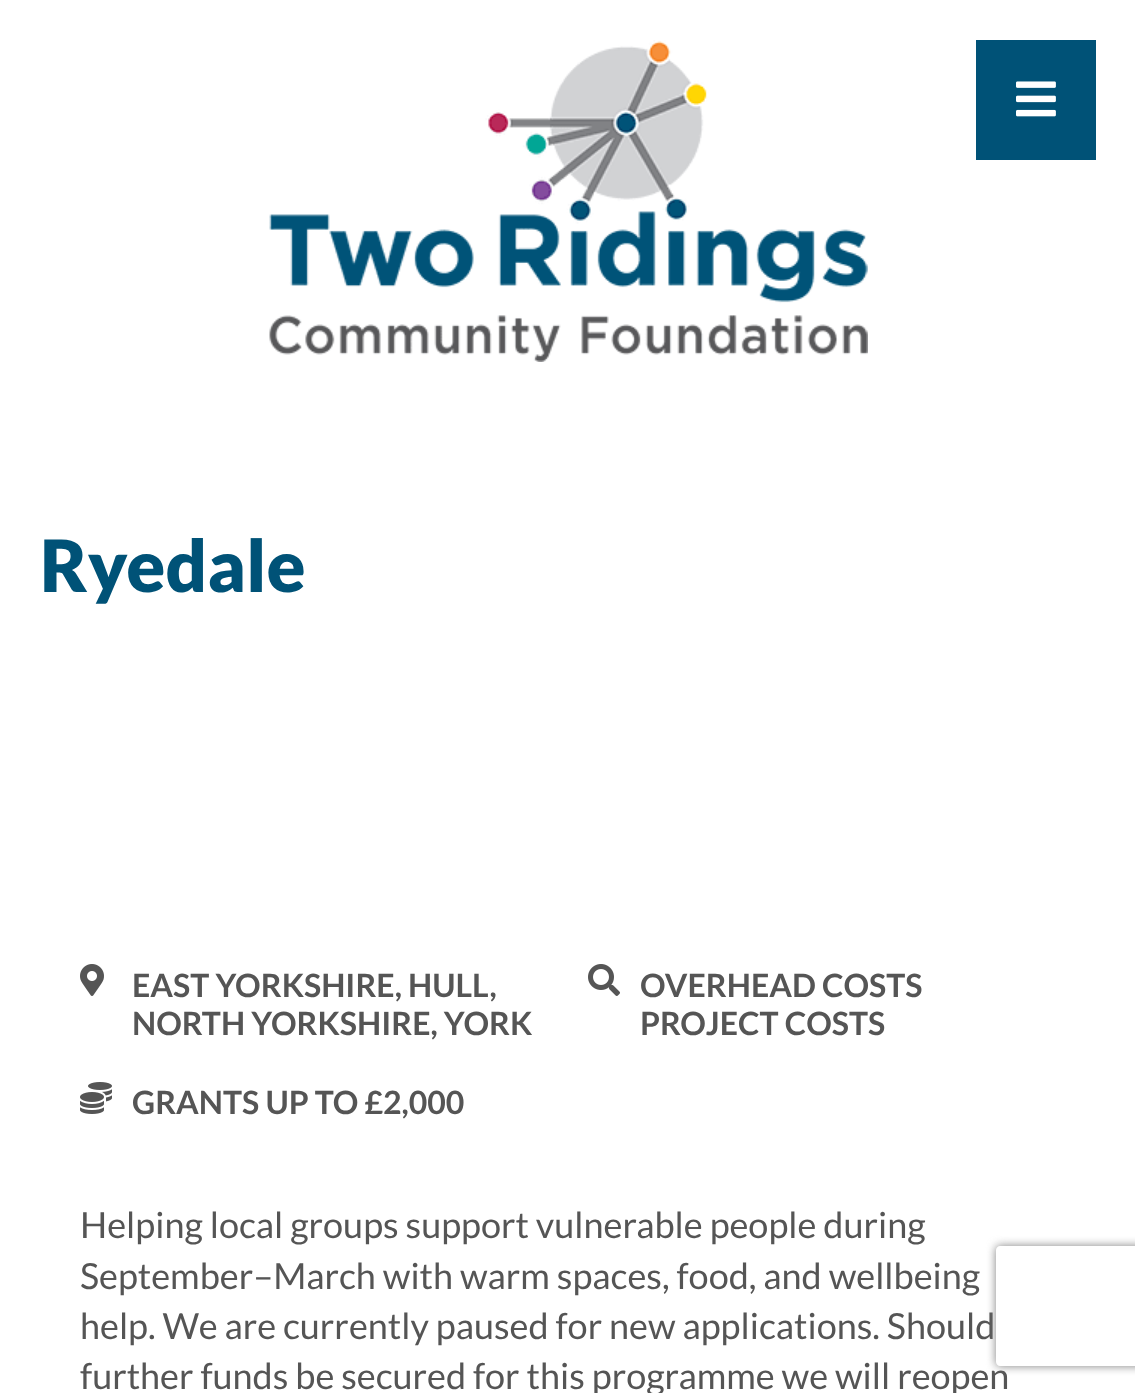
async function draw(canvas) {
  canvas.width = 1135;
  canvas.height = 1393;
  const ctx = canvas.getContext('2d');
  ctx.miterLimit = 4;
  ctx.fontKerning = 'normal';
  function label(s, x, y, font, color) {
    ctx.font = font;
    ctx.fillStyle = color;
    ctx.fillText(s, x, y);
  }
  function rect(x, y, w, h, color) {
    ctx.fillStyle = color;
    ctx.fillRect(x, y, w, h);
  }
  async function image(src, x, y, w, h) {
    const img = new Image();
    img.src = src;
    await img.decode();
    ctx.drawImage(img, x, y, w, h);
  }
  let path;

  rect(0, 0, 1135, 1393, '#fff');
  await image('assets/img1.png', 269, 40, 599, 322);
  rect(976, 40, 120, 120, '#005277');
  await image('assets/img2.png', 1016, 81, 40, 36);
  label('Ryedale', 40, 592, '900 72px Lato', '#005277');
  await image('assets/img3.png', 80, 964, 24, 32);
  label('EAST YORKSHIRE, HULL,', 132, 997, 'bold 32px Lato', '#555');
  label('NORTH YORKSHIRE, YORK', 132, 1035, 'bold 32px Lato', '#555');
  await image('assets/img4.png', 588, 964, 32, 32);
  label('OVERHEAD COSTS', 640, 997, 'bold 32px Lato', '#555');
  label('PROJECT COSTS', 640, 1035, 'bold 32px Lato', '#555');
  await image('assets/img5.png', 80, 1082, 32, 32);
  label('GRANTS UP TO £2,000', 132, 1114, 'bold 32px Lato', '#555');
  label('Helping local groups support vulnerable people during', 80, 1238, '36px Lato', '#555');
  label('September–March with warm spaces, food, and wellbeing', 80, 1289, '36px Lato', '#555');
  label('help. We are currently paused for new applications. Should', 80, 1339, '36px Lato', '#555');
  label('further funds be secured for this programme we will reopen', 80, 1389, '36px Lato', '#555');
  ctx.save();
  path = new Path2D('M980 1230H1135V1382H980ZM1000 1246H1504C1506 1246 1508 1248 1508 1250V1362C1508 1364 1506 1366 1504 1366H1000C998 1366 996 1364 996 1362V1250C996 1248 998 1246 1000 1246Z');
  ctx.clip(path, 'evenodd');
  ctx.fillStyle = '#808080';
  ctx.filter = 'blur(5px)';
  ctx.beginPath();
  ctx.roundRect(996, 1246, 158, 120, 4);
  ctx.fill();
  ctx.filter = 'none';
  ctx.restore();
}

draw(document.querySelector('canvas'));
